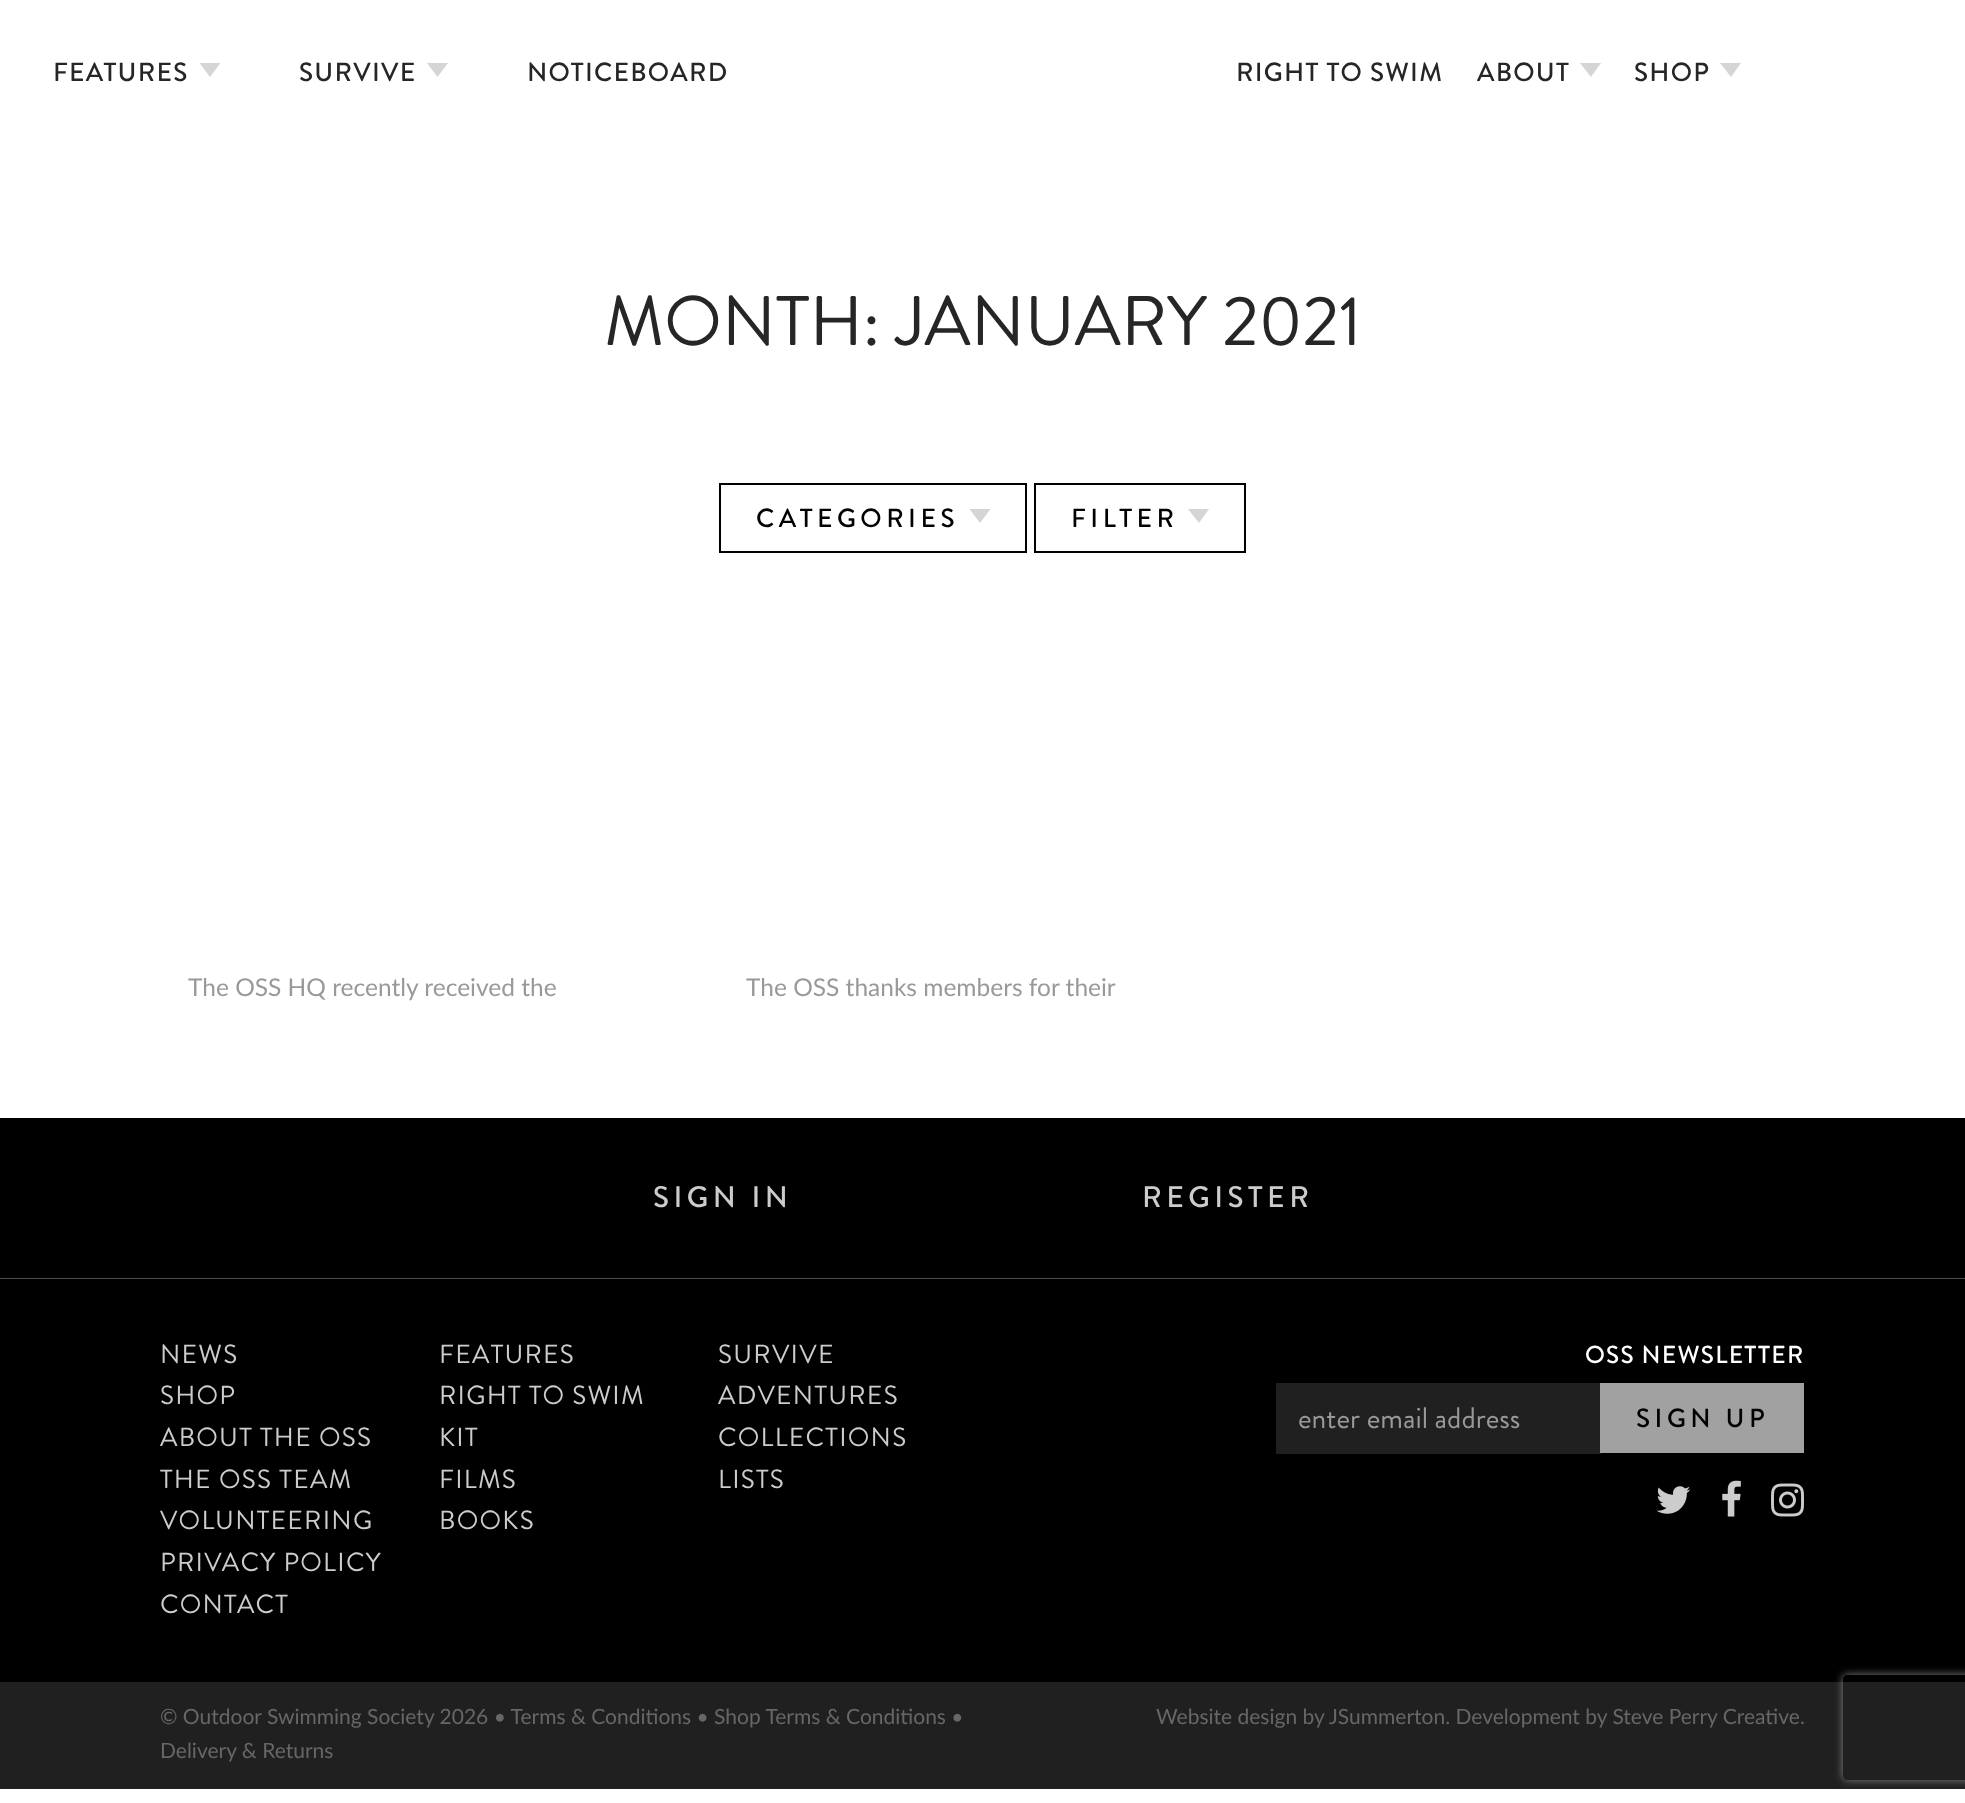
async function draw(canvas) {
  canvas.width = 1965;
  canvas.height = 1803;
  const ctx = canvas.getContext('2d');
  ctx.miterLimit = 4;
  ctx.fontKerning = 'normal';
  function label(s, x, y, font, color) {
    ctx.font = font;
    ctx.fillStyle = color;
    ctx.fillText(s, x, y);
  }
  function rect(x, y, w, h, color) {
    ctx.fillStyle = color;
    ctx.fillRect(x, y, w, h);
  }
  async function image(src, x, y, w, h) {
    const img = new Image();
    img.src = src;
    await img.decode();
    ctx.drawImage(img, x, y, w, h);
  }
  let path;

  rect(0, 0, 1965, 1803, '#fff');
  ctx.letterSpacing = '1.25px';
  label('FEATURES', 53, 81, '500 26.25px Brandon Grotesque', '#262626');
  ctx.fillStyle = '#d5d5d5';
  path = new Path2D('M199.5 63H220.5L210 77Z');
  ctx.fill(path);
  label('SURVIVE', 299, 81, '500 26.25px Brandon Grotesque', '#262626');
  ctx.fillStyle = '#d5d5d5';
  path = new Path2D('M427 63H448L437.5 77Z');
  ctx.fill(path);
  label('NOTICEBOARD', 527, 81, '500 26.25px Brandon Grotesque', '#262626');
  label('RIGHT TO SWIM', 1236, 81, '500 26.25px Brandon Grotesque', '#262626');
  label('ABOUT', 1477, 81, '500 26.25px Brandon Grotesque', '#262626');
  ctx.fillStyle = '#d5d5d5';
  path = new Path2D('M1580 63H1601L1591 77Z');
  ctx.fill(path);
  label('SHOP', 1634, 81, '500 26.25px Brandon Grotesque', '#262626');
  ctx.fillStyle = '#d5d5d5';
  path = new Path2D('M1720 63H1741L1731 77Z');
  ctx.fill(path);
  ctx.letterSpacing = '0px';
  label('MONTH: JANUARY 2021', 604, 345, '70px Brandon Grotesque', '#262626');
  ctx.strokeStyle = '#000';
  ctx.lineWidth = 2;
  ctx.strokeRect(720, 484, 306, 68);
  ctx.letterSpacing = '4.5px';
  label('CATEGORIES', 756, 527, '500 26.25px Brandon Grotesque', '#000');
  ctx.fillStyle = '#d5d5d5';
  path = new Path2D('M969.5 509H990.5L980 523Z');
  ctx.fill(path);
  ctx.strokeRect(1035, 484, 210, 68);
  label('FILTER', 1071, 527, '500 26.25px Brandon Grotesque', '#000');
  ctx.fillStyle = '#d5d5d5';
  path = new Path2D('M1188 509H1209L1199 523Z');
  ctx.fill(path);
  ctx.letterSpacing = '0px';
  label('The OSS HQ recently received the', 188, 996, '24.5px Lato', '#999');
  label('The OSS thanks members for their', 746, 996, '24.5px Lato', '#999');
  rect(0, 1118, 1965, 160, '#000');
  rect(0, 1278, 1965, 1, '#4d4d4d');
  ctx.letterSpacing = '4.5px';
  label('SIGN IN', 653, 1207, '500 29.75px Brandon Grotesque', '#ccc');
  label('REGISTER', 1142, 1207, '500 29.75px Brandon Grotesque', '#ccc');
  rect(0, 1279, 1965, 403, '#000');
  ctx.letterSpacing = '1.25px';
  label('NEWS', 160, 1363, '26.25px Brandon Grotesque', '#ccc');
  label('SHOP', 160, 1404, '26.25px Brandon Grotesque', '#ccc');
  label('ABOUT THE OSS', 160, 1446, '26.25px Brandon Grotesque', '#ccc');
  label('THE OSS TEAM', 160, 1488, '26.25px Brandon Grotesque', '#ccc');
  label('VOLUNTEERING', 160, 1529, '26.25px Brandon Grotesque', '#ccc');
  label('PRIVACY POLICY', 160, 1571, '26.25px Brandon Grotesque', '#ccc');
  label('CONTACT', 160, 1613, '26.25px Brandon Grotesque', '#ccc');
  label('FEATURES', 439, 1363, '26.25px Brandon Grotesque', '#ccc');
  label('RIGHT TO SWIM', 439, 1404, '26.25px Brandon Grotesque', '#ccc');
  label('KIT', 439, 1446, '26.25px Brandon Grotesque', '#ccc');
  label('FILMS', 439, 1488, '26.25px Brandon Grotesque', '#ccc');
  label('BOOKS', 439, 1529, '26.25px Brandon Grotesque', '#ccc');
  label('SURVIVE', 718, 1363, '26.25px Brandon Grotesque', '#ccc');
  label('ADVENTURES', 718, 1404, '26.25px Brandon Grotesque', '#ccc');
  label('COLLECTIONS', 718, 1446, '26.25px Brandon Grotesque', '#ccc');
  label('LISTS', 718, 1488, '26.25px Brandon Grotesque', '#ccc');
  label('OSS NEWSLETTER', 1585, 1363, '500 24.5px Brandon Grotesque', '#fff');
  rect(1278, 1386, 321, 66, '#202020');
  rect(1278, 1385, 322, 1, '#1e1e1e');
  ctx.strokeStyle = '#202020';
  ctx.strokeRect(1277, 1384, 323, 69);
  ctx.letterSpacing = '0px';
  label('enter email address', 1298, 1428, '29.75px Brandon Grotesque', '#999');
  rect(1600, 1383, 204, 70, '#a1a1a1');
  ctx.letterSpacing = '4.5px';
  label('SIGN UP', 1636, 1427, '500 26.25px Brandon Grotesque', '#000');
  await image('assets/img1.png', 1656, 1486, 35, 28);
  await image('assets/img2.png', 1722, 1480, 19, 37);
  await image('assets/img3.png', 1771, 1483, 33, 34);
  rect(0, 1682, 1965, 107, '#202020');
  ctx.letterSpacing = '0px';
  label('© Outdoor Swimming Society 2026 • Terms & Conditions • Shop Terms & Conditions •', 160, 1724, '21px Lato', '#676767');
  label('Delivery & Returns', 160, 1758, '21px Lato', '#676767');
  label('Website design by', 1156, 1724, '21px Lato', '#676767');
  label('JSummerton. Development by Steve Perry Creative.', 1329, 1724, '21px Lato', '#676767');
  ctx.save();
  path = new Path2D('M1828 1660H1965V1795H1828ZM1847 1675H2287C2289 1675 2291 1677 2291 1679V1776C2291 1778 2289 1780 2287 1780H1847C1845 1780 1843 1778 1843 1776V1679C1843 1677 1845 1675 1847 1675Z');
  ctx.clip(path, 'evenodd');
  ctx.fillStyle = '#808080';
  ctx.filter = 'blur(4.5px)';
  ctx.beginPath();
  ctx.roundRect(1843, 1675, 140, 105, 4);
  ctx.fill();
  ctx.filter = 'none';
  ctx.restore();
}

draw(document.querySelector('canvas'));
